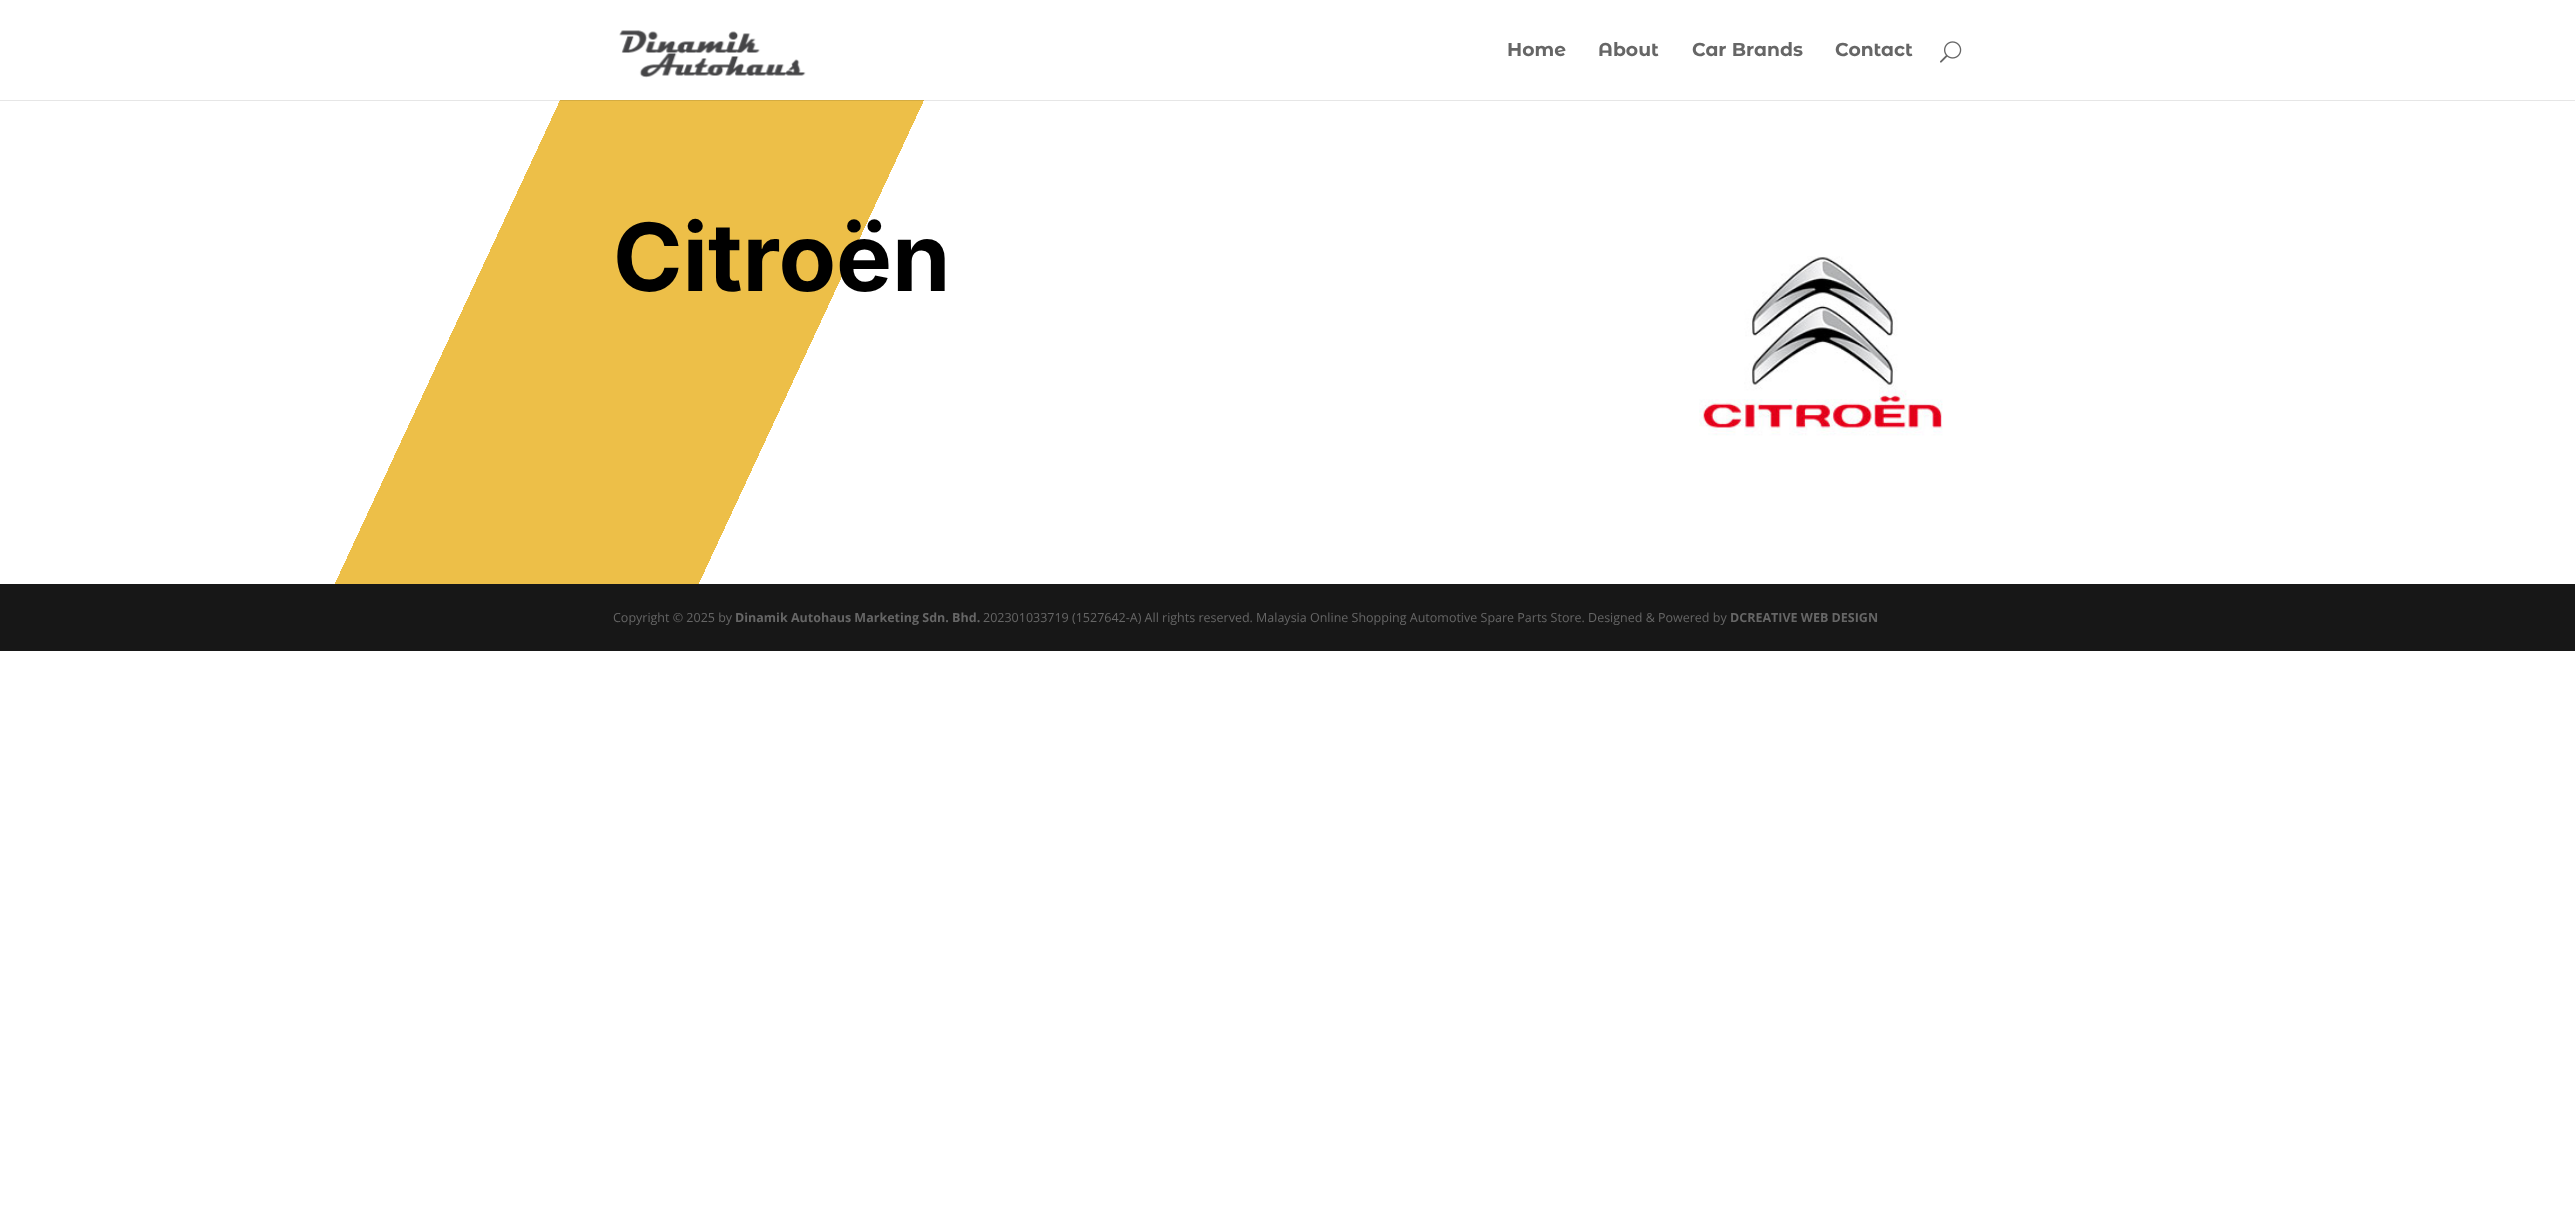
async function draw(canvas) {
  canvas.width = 2575;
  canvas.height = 1212;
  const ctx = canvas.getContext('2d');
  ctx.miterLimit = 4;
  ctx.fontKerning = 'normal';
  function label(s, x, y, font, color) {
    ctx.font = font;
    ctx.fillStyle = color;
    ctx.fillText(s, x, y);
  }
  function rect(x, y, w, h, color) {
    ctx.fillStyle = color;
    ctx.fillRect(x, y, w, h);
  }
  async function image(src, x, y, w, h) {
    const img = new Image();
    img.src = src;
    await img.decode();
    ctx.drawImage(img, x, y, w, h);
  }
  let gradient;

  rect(0, 0, 2575, 1212, '#fff');
  await image('assets/img1.png', 619, 30, 187, 48);
  label('Home', 1507, 56, 'bold 18.75px Montserrat Alternates', '#666');
  label('About', 1598, 56, 'bold 18.75px Montserrat Alternates', '#666');
  label('Car Brands', 1692, 56, 'bold 18.75px Montserrat Alternates', '#666');
  label('Contact', 1835, 56, 'bold 18.75px Montserrat Alternates', '#666');
  await image('assets/img2.png', 1940, 41, 22, 22);
  gradient = ctx.createLinearGradient(137, -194, 2438, 878);
  gradient.addColorStop(0.2, '#fff');
  gradient.addColorStop(0.2, '#edbf48');
  gradient.addColorStop(0.33, '#edbf48');
  gradient.addColorStop(0.33, '#fff');
  ctx.fillStyle = gradient;
  ctx.fillRect(335, 101, 588, 483);
  gradient = ctx.createLinearGradient(137, -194, 2438, 878);
  gradient.addColorStop(0.2, '#e6e6e6');
  gradient.addColorStop(0.2, '#d5ac41');
  gradient.addColorStop(0.33, '#d5ac41');
  gradient.addColorStop(0.33, '#e6e6e6');
  ctx.fillStyle = gradient;
  ctx.fillRect(0, 100, 2575, 1);
  label('Citroën', 613, 291, 'bold 94px Inter', '#000');
  await image('assets/img3.png', 1699, 256, 244, 180);
  rect(0, 584, 2575, 67, '#171717');
  label('Copyright © 2025 by', 613, 622, '12.5px Open Sans', '#666');
  label('Dinamik Autohaus Marketing Sdn. Bhd.', 735, 622, 'bold 12.5px Open Sans', '#666');
  label('202301033719 (1527642-A) All rights reserved. Malaysia Online Shopping Automotive Spare Parts Store. Designed & Powered by', 983, 622, '12.5px Open Sans', '#666');
  label('DCREATIVE WEB DESIGN', 1730, 622, 'bold 12.5px Open Sans', '#666');
}

draw(document.querySelector('canvas'));
